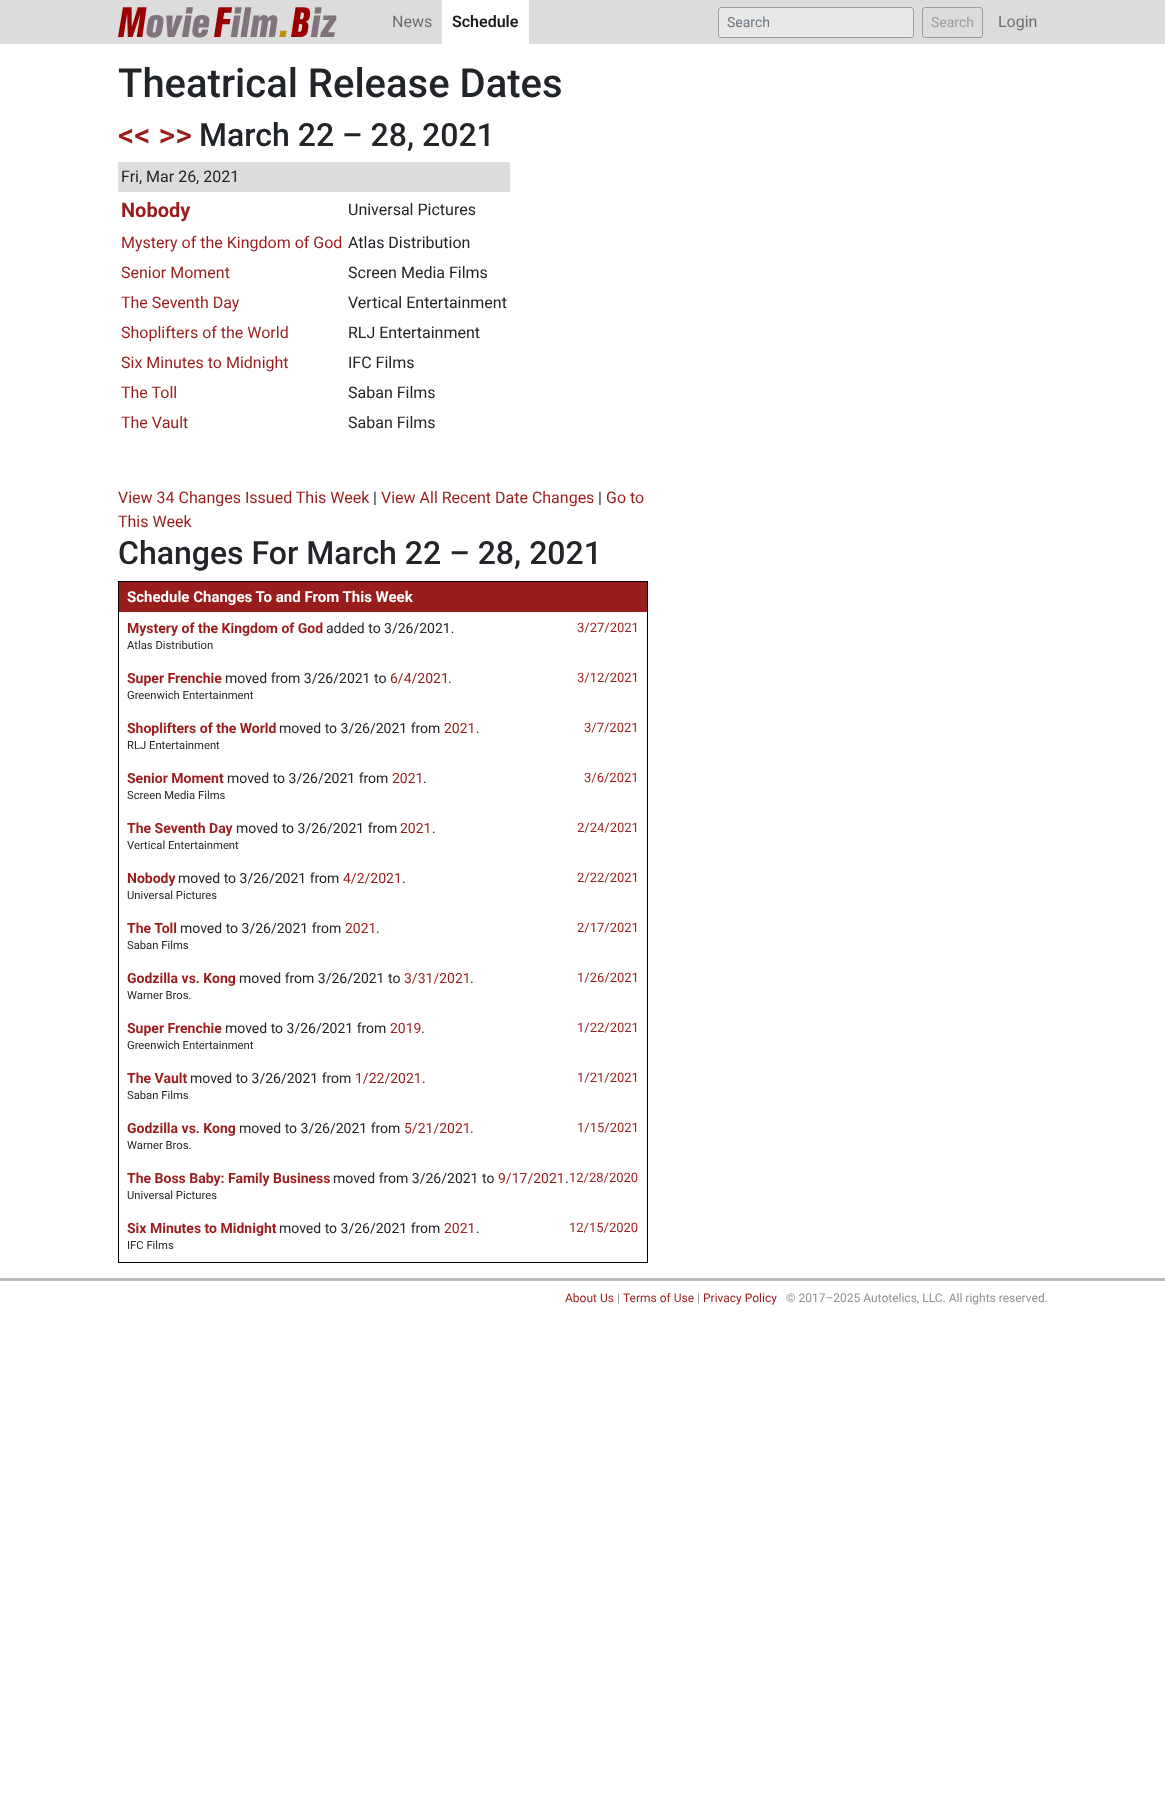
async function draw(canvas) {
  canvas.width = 1165;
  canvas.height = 1813;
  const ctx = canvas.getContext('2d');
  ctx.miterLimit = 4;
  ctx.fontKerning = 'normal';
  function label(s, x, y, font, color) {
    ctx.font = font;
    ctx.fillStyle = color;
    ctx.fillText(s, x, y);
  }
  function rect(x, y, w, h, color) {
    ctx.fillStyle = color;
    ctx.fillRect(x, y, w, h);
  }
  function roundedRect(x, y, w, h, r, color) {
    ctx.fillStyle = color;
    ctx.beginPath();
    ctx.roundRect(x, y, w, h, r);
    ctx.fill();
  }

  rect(0, 0, 1165, 1813, '#fff');
  rect(0, 0, 1165, 44, '#dcdcdc');
  ctx.letterSpacing = '1px';
  label('M', 118, 37, 'italic bold 42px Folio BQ', '#990001');
  label('ovie', 146, 37, 'italic bold 42px Folio BQ', '#80737c');
  label('F', 214, 37, 'italic bold 42px Folio BQ', '#990001');
  label('ilm', 231, 37, 'italic bold 42px Folio BQ', '#80737c');
  label('.', 280, 37, 'italic bold 42px Folio BQ', '#c38e02');
  label('B', 291, 37, 'italic bold 42px Folio BQ', '#990001');
  label('iz', 311, 37, 'italic bold 42px Folio BQ', '#80737c');
  ctx.letterSpacing = '0px';
  label('News', 392, 27, '16px Roboto', '#6e6e6e');
  rect(442, 0, 87, 44, '#fff');
  label('Schedule', 452, 27, '600 16px Roboto', '#1a1a1a');
  roundedRect(719, 8, 194, 29, 2, '#e8e8e8');
  ctx.beginPath();
  ctx.roundRect(718.5, 7.5, 195, 30, 2.5);
  ctx.strokeStyle = '#81737da6';
  ctx.stroke();
  label('Search', 727, 27, '14px Roboto', '#6c757d');
  ctx.beginPath();
  ctx.roundRect(922.5, 7.5, 60, 30, 2.5);
  ctx.strokeStyle = '#a1989e';
  ctx.stroke();
  label('Search', 931, 27, '14px Roboto', '#a1989e');
  label('Login', 998, 27, '16px Roboto', '#6e6e6e');
  label('Theatrical Release Dates', 118, 97, '500 40px Roboto', '#212529');
  label('<< >>', 118, 146, '500 32px Roboto', '#9a1d1d');
  label('March 22 – 28, 2021', 199, 146, '500 32px Roboto', '#212529');
  rect(118, 162, 392, 30, '#dcdcdc');
  label('Fri, Mar 26, 2021', 121, 182, '16px Roboto', '#212529');
  label('Nobody', 121, 217, 'bold 20px Roboto', '#9a1d1d');
  label('Universal Pictures', 348, 215, '16px Roboto', '#212529');
  label('Mystery of the Kingdom of God', 121, 248, '16px Roboto', '#9a1d1d');
  label('Atlas Distribution', 348, 248, '16px Roboto', '#212529');
  label('Senior Moment', 121, 278, '16px Roboto', '#9a1d1d');
  label('Screen Media Films', 348, 278, '16px Roboto', '#212529');
  label('The Seventh Day', 121, 308, '16px Roboto', '#9a1d1d');
  label('Vertical Entertainment', 348, 308, '16px Roboto', '#212529');
  label('Shoplifters of the World', 121, 338, '16px Roboto', '#9a1d1d');
  label('RLJ Entertainment', 348, 338, '16px Roboto', '#212529');
  label('Six Minutes to Midnight', 121, 368, '16px Roboto', '#9a1d1d');
  label('IFC Films', 348, 368, '16px Roboto', '#212529');
  label('The Toll', 121, 398, '16px Roboto', '#9a1d1d');
  label('Saban Films', 348, 398, '16px Roboto', '#212529');
  label('The Vault', 121, 428, '16px Roboto', '#9a1d1d');
  label('Saban Films', 348, 428, '16px Roboto', '#212529');
  label('View 34 Changes Issued This Week', 118, 503, '16px Roboto', '#9a1d1d');
  label('|', 373, 503, '16px Roboto', '#212529');
  label('View All Recent Date Changes', 381, 503, '16px Roboto', '#9a1d1d');
  label('|', 598, 503, '16px Roboto', '#212529');
  label('Go to', 606, 503, '16px Roboto', '#9a1d1d');
  label('This Week', 118, 527, '16px Roboto', '#9a1d1d');
  label('Changes For March 22 – 28, 2021', 118, 564, '500 32px Roboto', '#212529');
  ctx.strokeStyle = '#000';
  ctx.strokeRect(118.5, 581.5, 529, 681);
  rect(119, 582, 528, 30, '#9a1d1d');
  label('Schedule Changes To and From This Week', 127, 602, 'bold 15px Roboto', '#fff');
  label('Mystery of the Kingdom of God', 127, 633, 'bold 14px Roboto', '#9a1d1d');
  label('added to 3/26/2021.', 326, 633, '14px Roboto', '#212529');
  label('3/27/2021', 577, 632, '13px Roboto', '#9a1d1d');
  label('Atlas Distribution', 127, 649, '11.25px Roboto', '#212529');
  label('Super Frenchie', 127, 683, 'bold 14px Roboto', '#9a1d1d');
  label('moved from 3/26/2021 to', 225, 683, '14px Roboto', '#212529');
  label('6/4/2021', 390, 683, '14px Roboto', '#9a1d1d');
  label('.', 448, 683, '14px Roboto', '#212529');
  label('3/12/2021', 577, 682, '13px Roboto', '#9a1d1d');
  label('Greenwich Entertainment', 127, 699, '11.25px Roboto', '#212529');
  label('Shoplifters of the World', 127, 733, 'bold 14px Roboto', '#9a1d1d');
  label('moved to 3/26/2021 from', 279, 733, '14px Roboto', '#212529');
  label('2021', 444, 733, '14px Roboto', '#9a1d1d');
  label('.', 476, 733, '14px Roboto', '#212529');
  label('3/7/2021', 584, 732, '13px Roboto', '#9a1d1d');
  label('RLJ Entertainment', 127, 749, '11.25px Roboto', '#212529');
  label('Senior Moment', 127, 783, 'bold 14px Roboto', '#9a1d1d');
  label('moved to 3/26/2021 from', 227, 783, '14px Roboto', '#212529');
  label('2021', 392, 783, '14px Roboto', '#9a1d1d');
  label('.', 423, 783, '14px Roboto', '#212529');
  label('3/6/2021', 584, 782, '13px Roboto', '#9a1d1d');
  label('Screen Media Films', 127, 799, '11.25px Roboto', '#212529');
  label('The Seventh Day', 127, 833, 'bold 14px Roboto', '#9a1d1d');
  label('moved to 3/26/2021 from', 236, 833, '14px Roboto', '#212529');
  label('2021', 400, 833, '14px Roboto', '#9a1d1d');
  label('.', 432, 833, '14px Roboto', '#212529');
  label('2/24/2021', 577, 832, '13px Roboto', '#9a1d1d');
  label('Vertical Entertainment', 127, 849, '11.25px Roboto', '#212529');
  label('Nobody', 127, 883, 'bold 14px Roboto', '#9a1d1d');
  label('moved to 3/26/2021 from', 178, 883, '14px Roboto', '#212529');
  label('4/2/2021', 343, 883, '14px Roboto', '#9a1d1d');
  label('.', 402, 883, '14px Roboto', '#212529');
  label('2/22/2021', 577, 882, '13px Roboto', '#9a1d1d');
  label('Universal Pictures', 127, 899, '11.25px Roboto', '#212529');
  label('The Toll', 127, 933, 'bold 14px Roboto', '#9a1d1d');
  label('moved to 3/26/2021 from', 180, 933, '14px Roboto', '#212529');
  label('2021', 345, 933, '14px Roboto', '#9a1d1d');
  label('.', 376, 933, '14px Roboto', '#212529');
  label('2/17/2021', 577, 932, '13px Roboto', '#9a1d1d');
  label('Saban Films', 127, 949, '11.25px Roboto', '#212529');
  label('Godzilla vs. Kong', 127, 983, 'bold 14px Roboto', '#9a1d1d');
  label('moved from 3/26/2021 to', 239, 983, '14px Roboto', '#212529');
  label('3/31/2021', 404, 983, '14px Roboto', '#9a1d1d');
  label('.', 470, 983, '14px Roboto', '#212529');
  label('1/26/2021', 577, 982, '13px Roboto', '#9a1d1d');
  label('Warner Bros.', 127, 999, '11.25px Roboto', '#212529');
  label('Super Frenchie', 127, 1033, 'bold 14px Roboto', '#9a1d1d');
  label('moved to 3/26/2021 from', 225, 1033, '14px Roboto', '#212529');
  label('2019', 390, 1033, '14px Roboto', '#9a1d1d');
  label('.', 421, 1033, '14px Roboto', '#212529');
  label('1/22/2021', 577, 1032, '13px Roboto', '#9a1d1d');
  label('Greenwich Entertainment', 127, 1049, '11.25px Roboto', '#212529');
  label('The Vault', 127, 1083, 'bold 14px Roboto', '#9a1d1d');
  label('moved to 3/26/2021 from', 190, 1083, '14px Roboto', '#212529');
  label('1/22/2021', 355, 1083, '14px Roboto', '#9a1d1d');
  label('.', 422, 1083, '14px Roboto', '#212529');
  label('1/21/2021', 577, 1082, '13px Roboto', '#9a1d1d');
  label('Saban Films', 127, 1099, '11.25px Roboto', '#212529');
  label('Godzilla vs. Kong', 127, 1133, 'bold 14px Roboto', '#9a1d1d');
  label('moved to 3/26/2021 from', 239, 1133, '14px Roboto', '#212529');
  label('5/21/2021', 404, 1133, '14px Roboto', '#9a1d1d');
  label('.', 470, 1133, '14px Roboto', '#212529');
  label('1/15/2021', 577, 1132, '13px Roboto', '#9a1d1d');
  label('Warner Bros.', 127, 1149, '11.25px Roboto', '#212529');
  label('The Boss Baby: Family Business', 127, 1183, 'bold 14px Roboto', '#9a1d1d');
  label('moved from 3/26/2021 to', 333, 1183, '14px Roboto', '#212529');
  label('9/17/2021', 498, 1183, '14px Roboto', '#9a1d1d');
  label('.', 565, 1183, '14px Roboto', '#212529');
  label('12/28/2020', 569, 1182, '13px Roboto', '#9a1d1d');
  label('Universal Pictures', 127, 1199, '11.25px Roboto', '#212529');
  label('Six Minutes to Midnight', 127, 1233, 'bold 14px Roboto', '#9a1d1d');
  label('moved to 3/26/2021 from', 279, 1233, '14px Roboto', '#212529');
  label('2021', 444, 1233, '14px Roboto', '#9a1d1d');
  label('.', 476, 1233, '14px Roboto', '#212529');
  label('12/15/2020', 569, 1232, '13px Roboto', '#9a1d1d');
  label('IFC Films', 127, 1249, '11.25px Roboto', '#212529');
  rect(0, 1278, 1165, 3, '#bdbdbd');
  label('About Us', 565, 1302, '12px Roboto', '#9a1d1d');
  label('|', 617, 1302, '12px Roboto', '#909090');
  label('Terms of Use', 623, 1302, '12px Roboto', '#9a1d1d');
  label('|', 697, 1302, '12px Roboto', '#909090');
  label('Privacy Policy', 703, 1302, '12px Roboto', '#9a1d1d');
  label('© 2017–2025 Autotelics, LLC. All rights reserved.', 786, 1302, '12px Roboto', '#909090');
}

draw(document.querySelector('canvas'));
